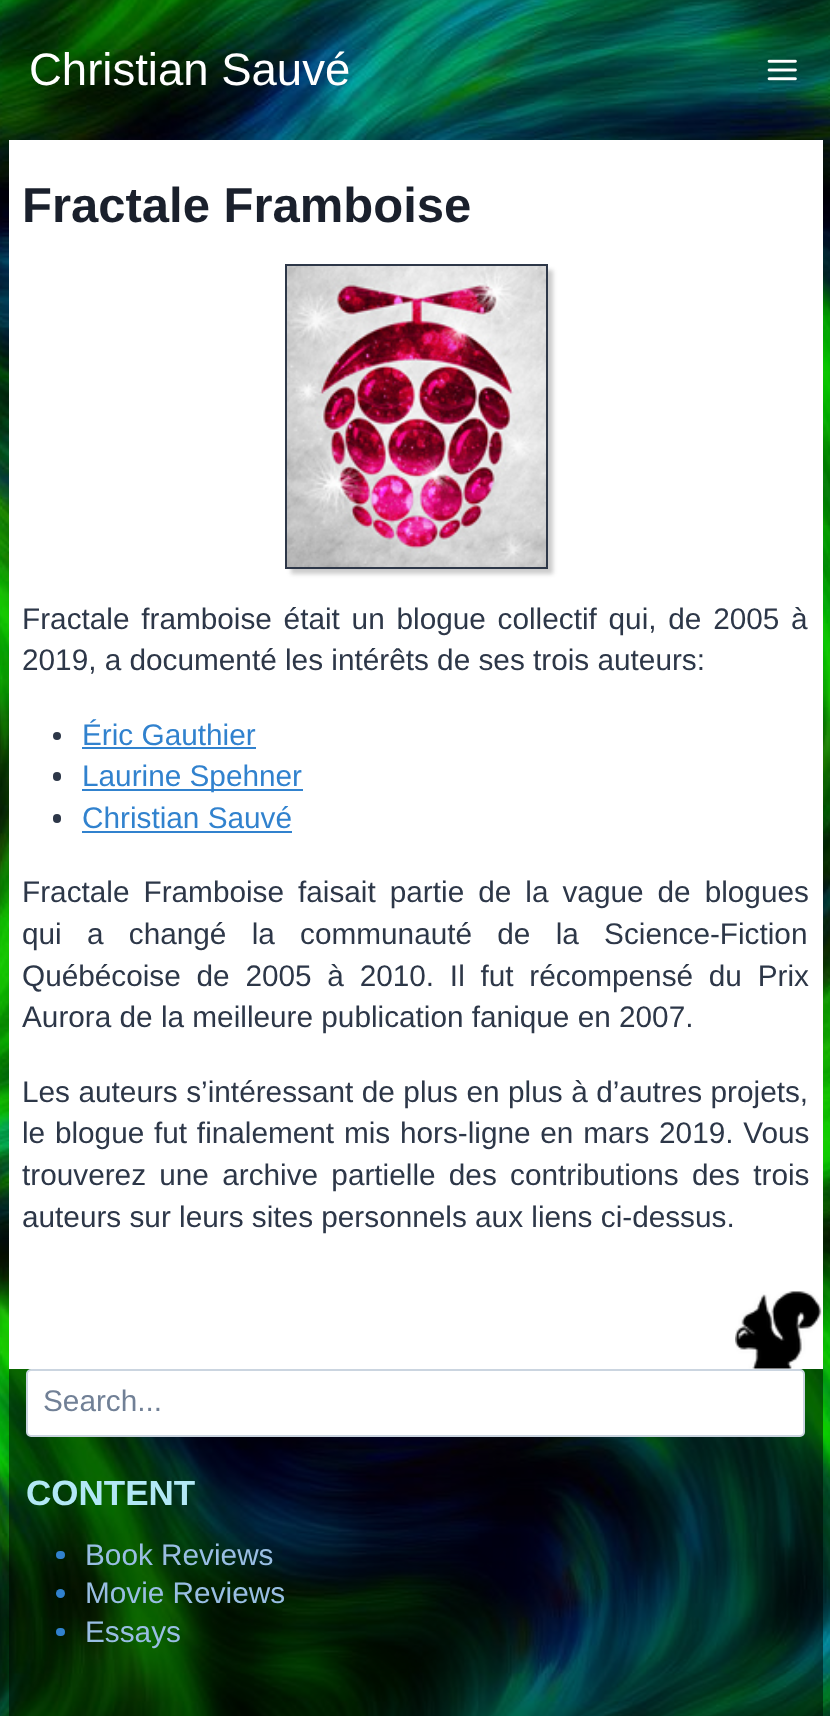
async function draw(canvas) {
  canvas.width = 830;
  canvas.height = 1716;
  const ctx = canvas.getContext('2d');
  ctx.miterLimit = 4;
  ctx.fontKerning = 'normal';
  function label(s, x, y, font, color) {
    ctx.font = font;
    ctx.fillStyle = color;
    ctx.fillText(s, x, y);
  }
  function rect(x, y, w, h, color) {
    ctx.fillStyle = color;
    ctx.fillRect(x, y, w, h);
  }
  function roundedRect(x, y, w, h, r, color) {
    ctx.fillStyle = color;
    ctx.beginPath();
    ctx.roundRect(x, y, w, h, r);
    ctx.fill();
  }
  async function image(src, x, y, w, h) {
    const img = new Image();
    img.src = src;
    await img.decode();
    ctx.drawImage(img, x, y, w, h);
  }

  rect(0, 0, 830, 1716, '#fff');
  await image('assets/img1.png', 0, 0, 830, 1716);
  label('Christian Sauvé', 29, 85, '45.5px Liberation Sans', '#fff');
  await image('assets/img2.png', 767, 59, 30, 22);
  rect(9, 140, 814, 1229, '#fff');
  await image('assets/img3.png', 735, 1291, 87, 78);
  label('Fractale Framboise', 22, 222, 'bold 49px Liberation Sans', '#1a202c');
  ctx.fillStyle = '#00000033';
  ctx.filter = 'blur(2px)';
  ctx.beginPath();
  ctx.rect(291, 270, 262, 304);
  ctx.fill();
  ctx.filter = 'none';
  ctx.strokeStyle = '#2d3748';
  ctx.lineWidth = 2;
  ctx.strokeRect(286, 265, 261, 303);
  await image('assets/img4.png', 287, 266, 259, 301);
  ctx.wordSpacing = '3.5px';
  label('Fractale framboise était un blogue collectif qui, de 2005 à', 22, 629, '29.75px Liberation Sans', '#2d3748');
  ctx.wordSpacing = '0px';
  label('2019, a documenté les intérêts de ses trois auteurs:', 22, 670, '29.75px Liberation Sans', '#2d3748');
  ctx.beginPath();
  ctx.arc(57, 736, 4, 0, 2 * Math.PI);
  ctx.fill();
  label('Éric Gauthier', 82, 745, '29.75px Liberation Sans', '#3182ce');
  rect(82, 747, 174, 2, '#3182ce');
  roundedRect(53, 772, 8, 9, 4, '#2d3748');
  rect(82, 789, 221, 2, '#3182ce');
  label('Laurine Spehner', 82, 786, '29.75px Liberation Sans', '#3182ce');
  roundedRect(53, 814, 8, 9, 4, '#2d3748');
  label('Christian Sauvé', 82, 828, '29.75px Liberation Sans', '#3182ce');
  rect(82, 831, 210, 2, '#3182ce');
  ctx.wordSpacing = '5.75px';
  label('Fractale Framboise faisait partie de la vague de blogues', 22, 902, '29.75px Liberation Sans', '#2d3748');
  ctx.wordSpacing = '17px';
  label('qui a changé la communauté de la Science-Fiction', 22, 944, '29.75px Liberation Sans', '#2d3748');
  ctx.wordSpacing = '7.5px';
  label('Québécoise de 2005 à 2010. Il fut récompensé du Prix', 22, 986, '29.75px Liberation Sans', '#2d3748');
  ctx.wordSpacing = '0px';
  label('Aurora de la meilleure publication fanique en 2007.', 22, 1027, '29.75px Liberation Sans', '#2d3748');
  ctx.wordSpacing = '0.25px';
  label('Les auteurs s’intéressant de plus en plus à d’autres projets,', 22, 1102, '29.75px Liberation Sans', '#2d3748');
  ctx.wordSpacing = '1.5px';
  label('le blogue fut finalement mis hors-ligne en mars 2019. Vous', 22, 1143, '29.75px Liberation Sans', '#2d3748');
  ctx.wordSpacing = '5px';
  label('trouverez une archive partielle des contributions des trois', 22, 1185, '29.75px Liberation Sans', '#2d3748');
  ctx.wordSpacing = '0px';
  label('auteurs sur leurs sites personnels aux liens ci-dessus.', 22, 1227, '29.75px Liberation Sans', '#2d3748');
  rect(9, 1369, 814, 347, '#00000080');
  ctx.fillStyle = '#fff';
  ctx.beginPath();
  ctx.roundRect(27, 1370, 777, 66, 4);
  ctx.fill();
  ctx.strokeStyle = '#cbd5e0';
  ctx.stroke();
  label('Search...', 43, 1411, '29.75px Liberation Sans', '#718096');
  label('CONTENT', 26, 1505, 'bold 35px Liberation Sans', '#b2e8f5');
  roundedRect(56, 1551, 9, 8, 4, '#3182ce');
  label('Book Reviews', 85, 1565, '29.75px Liberation Sans', '#99bee3');
  ctx.fillStyle = '#3182ce';
  ctx.beginPath();
  ctx.arc(60.5, 1593.5, 4.5, 0, 2 * Math.PI);
  ctx.fill();
  label('Movie Reviews', 85, 1603, '29.75px Liberation Sans', '#99bee3');
  roundedRect(56, 1628, 9, 8, 4, '#3182ce');
  label('Essays', 85, 1642, '29.75px Liberation Sans', '#99bee3');
}

draw(document.querySelector('canvas'));
